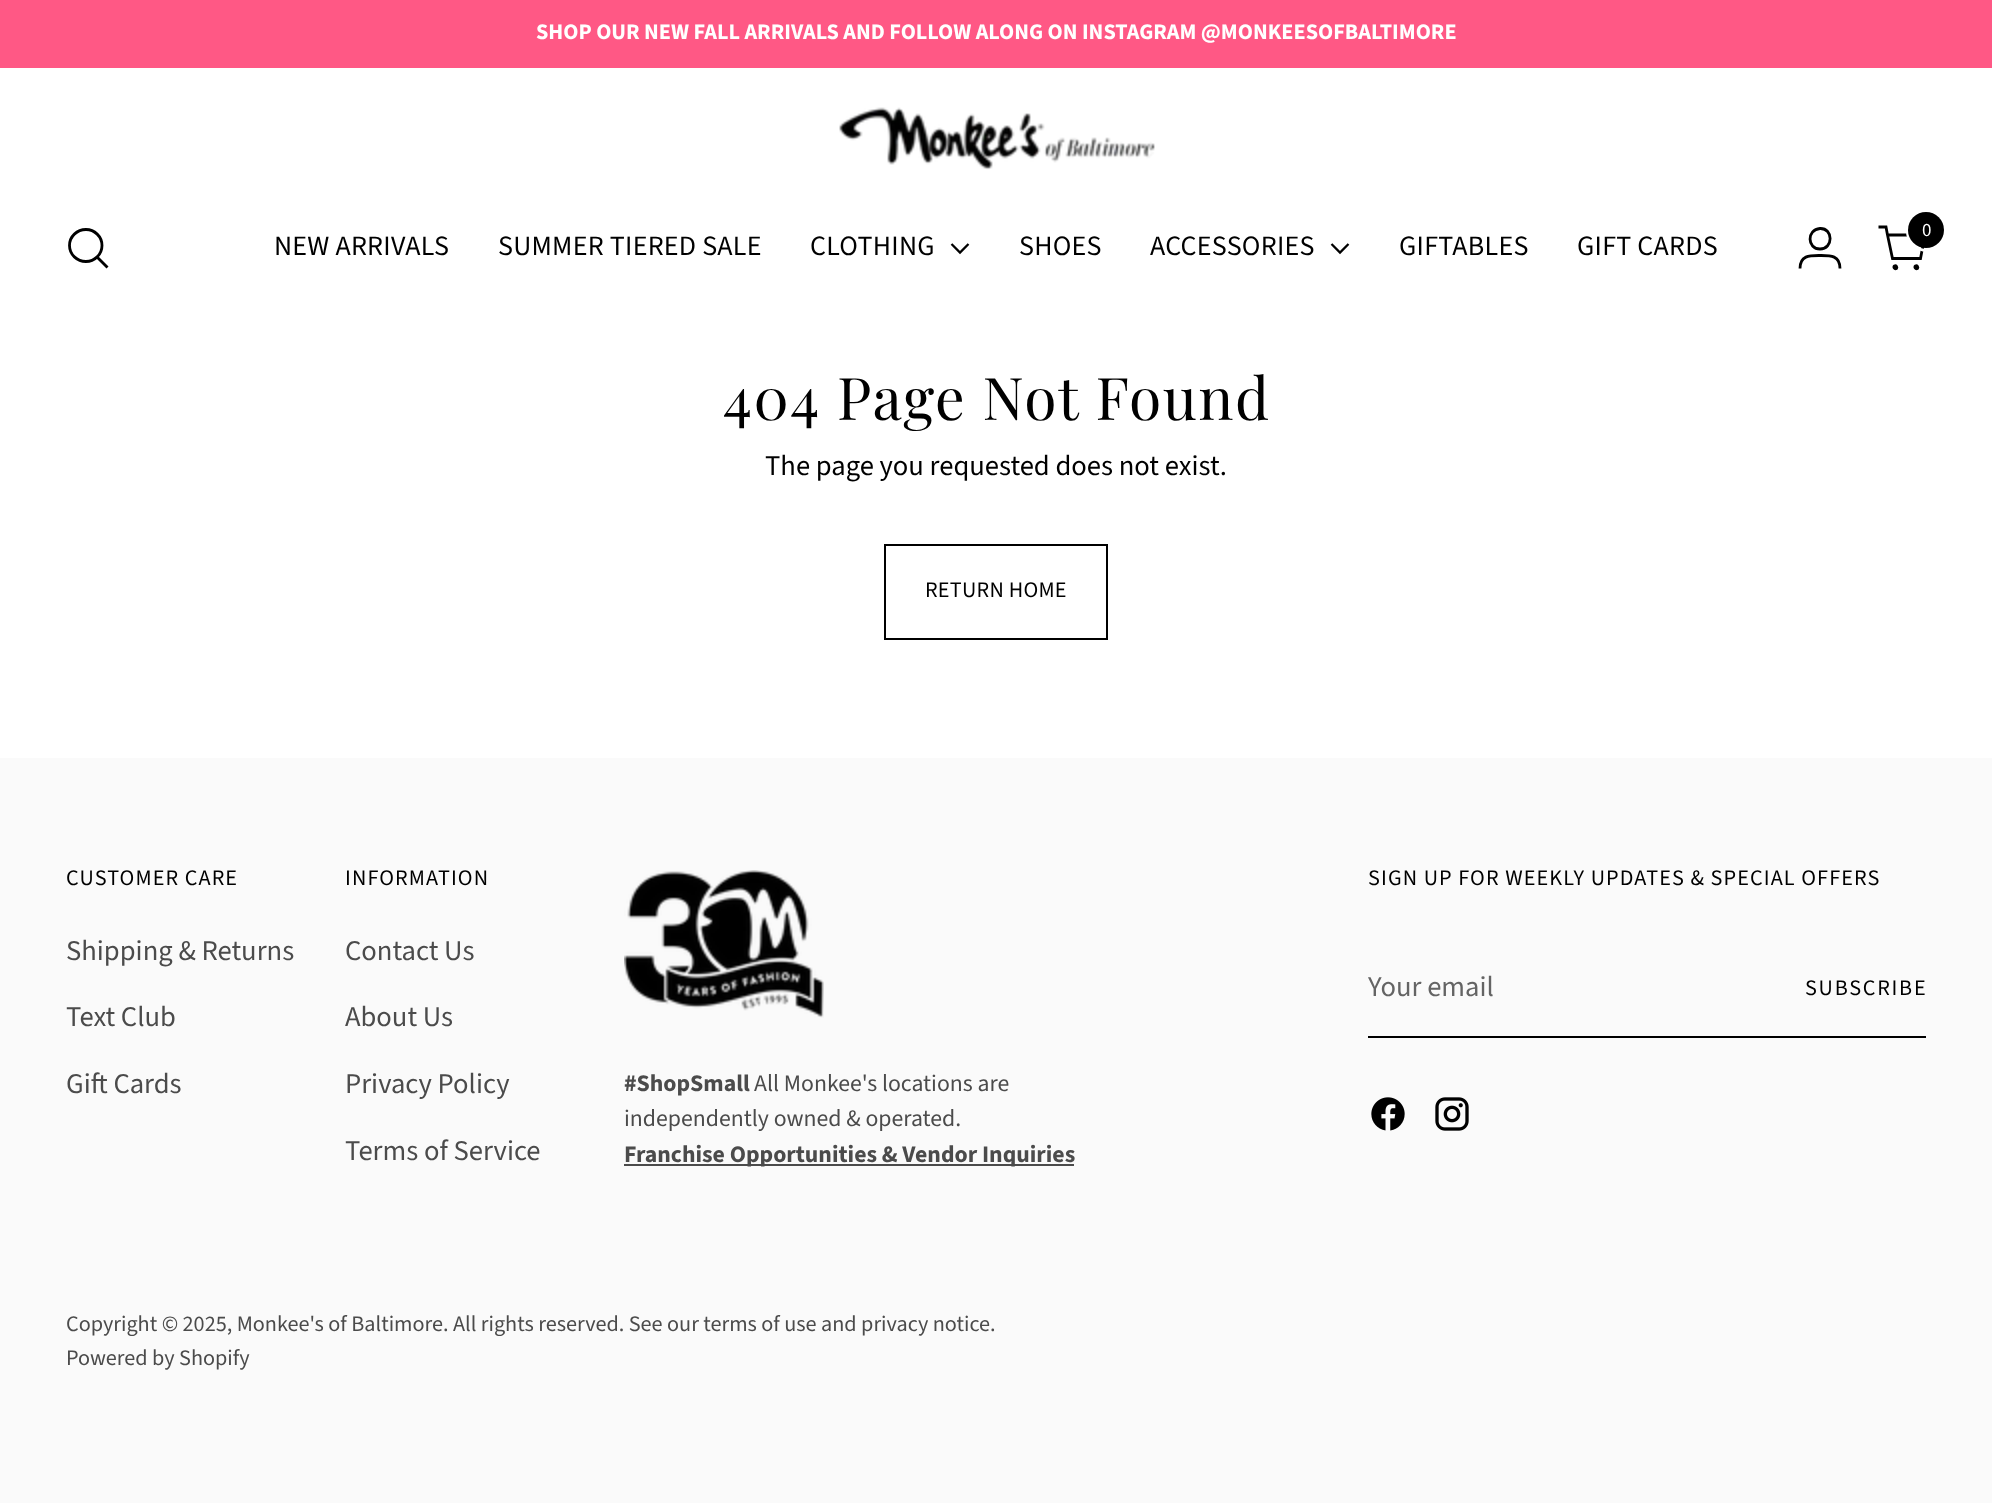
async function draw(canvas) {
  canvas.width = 1992;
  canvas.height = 1503;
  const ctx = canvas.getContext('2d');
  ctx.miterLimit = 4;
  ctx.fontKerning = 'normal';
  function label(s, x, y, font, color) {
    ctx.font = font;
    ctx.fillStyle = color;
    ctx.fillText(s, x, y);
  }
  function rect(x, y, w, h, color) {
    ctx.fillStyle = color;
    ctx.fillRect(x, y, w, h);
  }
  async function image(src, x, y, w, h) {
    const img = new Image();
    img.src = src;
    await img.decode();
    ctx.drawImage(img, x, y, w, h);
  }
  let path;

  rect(0, 0, 1992, 1503, '#fff');
  rect(0, 0, 1992, 68, '#ff5885');
  label('SHOP OUR NEW FALL ARRIVALS AND FOLLOW ALONG ON INSTAGRAM @MONKEESOFBALTIMORE', 536, 39, 'bold 22.2px Source Sans Pro', '#fff');
  await image('assets/img1.png', 839, 107, 316, 63);
  path = new Path2D('M86 261.5C94.5 261.5 102 254.5 102 245.5C102 236.5 94.5 229.5 86 229.5C77 229.5 69.5 236.5 69.5 245.5C69.5 254.5 77 261.5 86 261.5Z');
  ctx.strokeStyle = '#000';
  ctx.lineWidth = 2.8;
  ctx.lineCap = 'round';
  ctx.stroke(path);
  path = new Path2D('M97.5 257.5L107.5 267.5');
  ctx.lineCap = 'butt';
  ctx.stroke(path);
  ctx.letterSpacing = '0.25px';
  label('NEW ARRIVALS', 274, 255, '28px Source Sans Pro', '#000');
  label('SUMMER TIERED SALE', 498, 255, '28px Source Sans Pro', '#000');
  label('CLOTHING', 810, 255, '28px Source Sans Pro', '#000');
  path = new Path2D('M951.5 244L960 252.5L968.5 244');
  ctx.lineWidth = 2.3;
  ctx.stroke(path);
  label('SHOES', 1019, 255, '28px Source Sans Pro', '#000');
  label('ACCESSORIES', 1150, 255, '28px Source Sans Pro', '#000');
  path = new Path2D('M1331.5 244L1340 252.5L1348.5 244');
  ctx.stroke(path);
  label('GIFTABLES', 1399, 255, '28px Source Sans Pro', '#000');
  label('GIFT CARDS', 1577, 255, '28px Source Sans Pro', '#000');
  path = new Path2D('M1820 249C1833.5 249 1833.5 228 1820 228.5C1806.5 229.5 1807 249 1820 249ZM1800 268.5C1800 255 1810 255.5 1820 255.5C1830 255.5 1840 255 1840 268.5');
  ctx.lineWidth = 2.8;
  ctx.stroke(path);
  path = new Path2D('M1887.5 235H1925L1920.5 258.5H1892.5ZM1887.5 235L1886 227H1878.5');
  ctx.stroke(path);
  ctx.beginPath();
  ctx.arc(1927, 231, 19.5, 0, 2 * Math.PI);
  ctx.strokeStyle = '#fff';
  ctx.lineWidth = 3;
  ctx.stroke();
  ctx.beginPath();
  ctx.arc(1926, 230, 18, 0, 2 * Math.PI);
  ctx.fill();
  ctx.letterSpacing = '0px';
  label('0', 1922, 236, '19px Source Sans Pro', '#fff');
  path = new Path2D('M1894.5 266C1896 265 1897.5 267 1896.5 268.5C1894.5 269.5 1893 267 1894.5 266ZM1915.5 266C1917 265 1918.5 267 1917.5 268.5C1915.5 269.5 1914 267 1915.5 266Z');
  ctx.strokeStyle = '#000';
  ctx.lineWidth = 2.8;
  ctx.lineCap = 'round';
  ctx.lineJoin = 'bevel';
  ctx.stroke(path);
  ctx.letterSpacing = '1.5px';
  label('404 Page Not Found', 723, 420, '58.75px Playfair Display', '#000');
  ctx.letterSpacing = '0px';
  label('The page you requested does not exist.', 765, 475, '28.6px Source Sans Pro', '#000');
  ctx.lineWidth = 2;
  ctx.lineJoin = 'miter';
  ctx.strokeRect(885, 545, 222, 94);
  ctx.letterSpacing = '0.25px';
  label('RETURN HOME', 925, 597, '22.2px Source Sans Pro', '#000');
  rect(0, 758, 1992, 745, '#fafafa');
  ctx.letterSpacing = '1.1px';
  label('CUSTOMER CARE', 66, 885, '22.2px Source Sans Pro', '#000');
  ctx.letterSpacing = '0px';
  label('Shipping & Returns', 66, 960, '28.6px Source Sans Pro', '#4b4b4b');
  label('Text Club', 66, 1026, '28.6px Source Sans Pro', '#4b4b4b');
  label('Gift Cards', 66, 1093, '28.6px Source Sans Pro', '#4b4b4b');
  ctx.letterSpacing = '1.1px';
  label('INFORMATION', 345, 885, '22.2px Source Sans Pro', '#000');
  ctx.letterSpacing = '0px';
  label('Contact Us', 345, 960, '28.6px Source Sans Pro', '#4b4b4b');
  label('About Us', 345, 1026, '28.6px Source Sans Pro', '#4b4b4b');
  label('Privacy Policy', 345, 1093, '28.6px Source Sans Pro', '#4b4b4b');
  label('Terms of Service', 345, 1160, '28.6px Source Sans Pro', '#4b4b4b');
  ctx.letterSpacing = '1.1px';
  label('SIGN UP FOR WEEKLY UPDATES & SPECIAL OFFERS', 1368, 885, '22.2px Source Sans Pro', '#000');
  rect(1368, 1036, 558, 2, '#000');
  ctx.letterSpacing = '0px';
  label('Your email', 1368, 996, '28.6px Source Sans Pro', '#646464');
  ctx.letterSpacing = '1.75px';
  label('SUBSCRIBE', 1805, 995, '22.2px Source Sans Pro', '#000');
  await image('assets/img2.png', 1371, 1097, 34, 34);
  await image('assets/img3.png', 1435, 1097, 34, 34);
  await image('assets/img4.png', 624, 870, 200, 148);
  ctx.letterSpacing = '0px';
  label('#ShopSmall', 624, 1091, 'bold 23.75px Source Sans Pro', '#4b4b4b');
  label('All Monkee\'s locations are', 754, 1091, '23.75px Source Sans Pro', '#4b4b4b');
  label('independently owned & operated.', 624, 1126, '23.75px Source Sans Pro', '#4b4b4b');
  rect(624, 1164, 450, 2, '#4b4b4b');
  label('Franchise Opportunities & Vendor Inquiries', 624, 1162, 'bold 23.75px Source Sans Pro', '#4b4b4b');
  label('Copyright © 2025, Monkee\'s of Baltimore. All rights reserved. See our terms of use and privacy notice.', 66, 1331, '22.2px Source Sans Pro', '#4b4b4b');
  label('Powered by Shopify', 66, 1365, '22.2px Source Sans Pro', '#4b4b4b');
}

draw(document.querySelector('canvas'));
